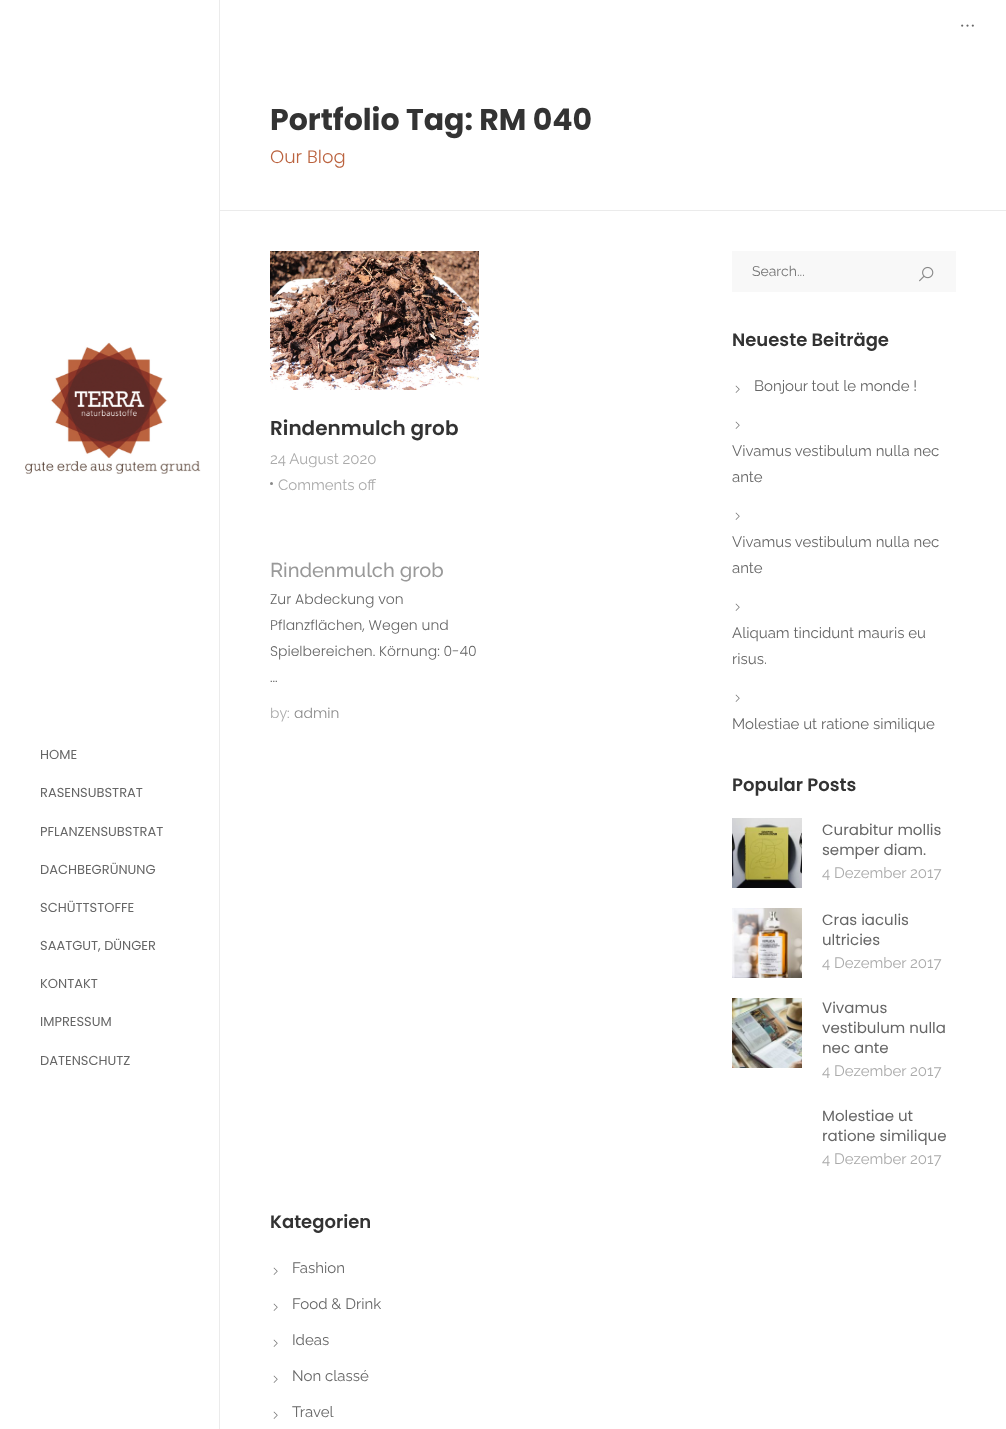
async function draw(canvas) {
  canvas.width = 1006;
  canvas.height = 1429;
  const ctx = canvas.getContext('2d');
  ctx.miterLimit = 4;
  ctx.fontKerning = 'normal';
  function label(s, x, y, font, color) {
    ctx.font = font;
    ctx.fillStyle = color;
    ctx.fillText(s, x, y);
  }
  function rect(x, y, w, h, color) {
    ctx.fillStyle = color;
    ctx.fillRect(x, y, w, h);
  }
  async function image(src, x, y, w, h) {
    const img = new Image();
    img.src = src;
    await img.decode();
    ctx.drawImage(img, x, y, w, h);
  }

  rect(0, 0, 1006, 1429, '#fff');
  await image('assets/img1.png', 961, 24, 13, 3);
  rect(219, 0, 1, 1429, '#ebebeb');
  await image('assets/img2.png', 25, 342, 176, 132);
  label('HOME', 40, 759, '13px Poppins', '#666');
  label('RASENSUBSTRAT', 40, 797, '13px Poppins', '#666');
  label('PFLANZENSUBSTRAT', 40, 836, '13px Poppins', '#666');
  label('DACHBEGRÜNUNG', 40, 874, '13px Poppins', '#666');
  label('SCHÜTTSTOFFE', 40, 912, '13px Poppins', '#666');
  label('SAATGUT, DÜNGER', 40, 950, '13px Poppins', '#666');
  label('KONTAKT', 40, 988, '13px Poppins', '#666');
  label('IMPRESSUM', 40, 1026, '13px Poppins', '#666');
  label('DATENSCHUTZ', 40, 1065, '13px Poppins', '#666');
  rect(220, 210, 786, 1, '#ebebeb');
  label('Portfolio Tag: RM 040', 270, 130, 'bold 30px Poppins', '#333');
  label('Our Blog', 270, 163, '300 18px Poppins', '#bb633f');
  rect(732, 251, 224, 41, '#f8f8f8');
  label('Search...', 752, 276, '14px Raleway', '#757575');
  await image('assets/img3.png', 919, 266, 15, 16);
  label('Neueste Beiträge', 732, 346, '600 18px Poppins', '#333');
  await image('assets/img4.png', 735, 385, 5, 8);
  label('Bonjour tout le monde !', 754, 391, '15px Raleway', '#666');
  await image('assets/img4.png', 735, 421, 5, 8);
  label('Vivamus vestibulum nulla nec', 732, 456, '15px Raleway', '#666');
  label('ante', 732, 482, '15px Raleway', '#666');
  await image('assets/img4.png', 735, 512, 5, 8);
  label('Vivamus vestibulum nulla nec', 732, 547, '15px Raleway', '#666');
  label('ante', 732, 573, '15px Raleway', '#666');
  await image('assets/img4.png', 735, 603, 5, 8);
  label('Aliquam tincidunt mauris eu', 732, 638, '15px Raleway', '#666');
  label('risus.', 732, 664, '15px Raleway', '#666');
  await image('assets/img4.png', 735, 694, 5, 8);
  label('Molestiae ut ratione similique', 732, 729, '15px Raleway', '#666');
  label('Popular Posts', 732, 791, '600 18px Poppins', '#333');
  await image('assets/img5.png', 732, 818, 70, 70);
  label('Curabitur mollis', 822, 835, '15px Poppins', '#666');
  label('semper diam.', 822, 855, '15px Poppins', '#666');
  label('4 Dezember 2017', 822, 878, '15px Raleway', '#aaa');
  await image('assets/img6.png', 732, 908, 70, 70);
  label('Cras iaculis', 822, 925, '15px Poppins', '#666');
  label('ultricies', 822, 945, '15px Poppins', '#666');
  label('4 Dezember 2017', 822, 968, '15px Raleway', '#aaa');
  await image('assets/img7.png', 732, 998, 70, 70);
  label('Vivamus', 822, 1013, '15px Poppins', '#666');
  label('vestibulum nulla', 822, 1033, '15px Poppins', '#666');
  label('nec ante', 822, 1053, '15px Poppins', '#666');
  label('4 Dezember 2017', 822, 1076, '15px Raleway', '#aaa');
  label('Molestiae ut', 822, 1121, '15px Poppins', '#666');
  label('ratione similique', 822, 1141, '15px Poppins', '#666');
  label('4 Dezember 2017', 822, 1164, '15px Raleway', '#aaa');
  label('Kategorien', 270, 1228, '600 18px Poppins', '#333');
  await image('assets/img4.png', 273, 1267, 5, 8);
  label('Fashion', 292, 1273, '15px Raleway', '#666');
  await image('assets/img4.png', 273, 1303, 5, 8);
  label('Food & Drink', 292, 1309, '15px Raleway', '#666');
  await image('assets/img4.png', 273, 1339, 5, 8);
  label('Ideas', 292, 1345, '15px Raleway', '#666');
  await image('assets/img4.png', 273, 1375, 5, 8);
  label('Non classé', 292, 1381, '15px Raleway', '#666');
  await image('assets/img4.png', 273, 1411, 5, 8);
  label('Travel', 292, 1417, '15px Raleway', '#666');
  await image('assets/img8.png', 270, 251, 209, 139);
  label('Rindenmulch grob', 270, 435, '600 20px Poppins', '#333');
  label('24 August 2020', 270, 464, '15px Raleway', '#aaa');
  ctx.fillStyle = '#888';
  ctx.beginPath();
  ctx.arc(271.5, 483.5, 1.5, 0, 2 * Math.PI);
  ctx.fill();
  label('Comments off', 278, 490, '15px Raleway', '#aaa');
  label('Rindenmulch grob', 270, 577, '500 20px Raleway', '#999');
  label('Zur Abdeckung von', 270, 604, '300 14px Poppins', '#666');
  label('Pflanzflächen, Wegen und', 270, 630, '300 14px Poppins', '#666');
  label('Spielbereichen. Körnung: 0-40', 270, 656, '300 14px Poppins', '#666');
  label('...', 270, 682, '300 14px Poppins', '#666');
  label('by:', 270, 718, '300 14px Poppins', '#aaa');
  label('admin', 294, 718, '300 14px Poppins', '#888');
}

draw(document.querySelector('canvas'));
